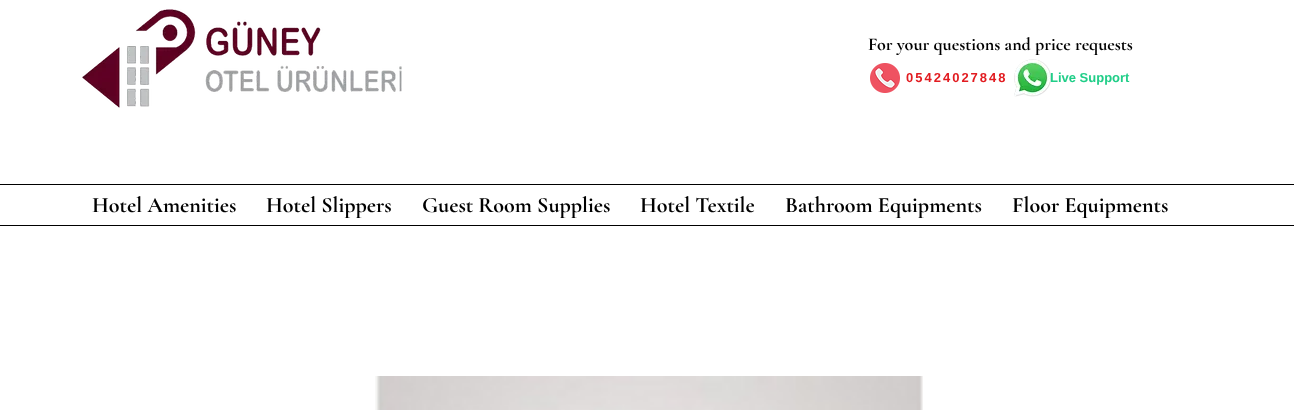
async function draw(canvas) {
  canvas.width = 1294;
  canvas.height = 410;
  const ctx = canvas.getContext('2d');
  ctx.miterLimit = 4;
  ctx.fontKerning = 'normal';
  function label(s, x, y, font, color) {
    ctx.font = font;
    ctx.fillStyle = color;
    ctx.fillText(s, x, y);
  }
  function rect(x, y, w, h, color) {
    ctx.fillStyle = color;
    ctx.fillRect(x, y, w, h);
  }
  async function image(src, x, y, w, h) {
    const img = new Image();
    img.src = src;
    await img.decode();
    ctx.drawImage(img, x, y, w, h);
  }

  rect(0, 0, 1294, 410, '#fff');
  await image('assets/img1.png', 82, 9, 320, 99);
  label('For your questions and price requests', 868, 50, 'bold 18px Cormorant Garamond', '#000');
  await image('assets/img2.png', 870, 63, 30, 30);
  ctx.letterSpacing = '2px';
  label('05424027848', 906, 82, 'bold 13px Liberation Sans', '#e21c21');
  await image('assets/img3.png', 1014, 59, 37, 38);
  ctx.letterSpacing = '0px';
  label('Live Support', 1050, 82, 'bold 13px Liberation Sans', '#20ce88');
  rect(0, 184, 1294, 1, '#000');
  rect(0, 225, 1294, 1, '#000');
  label('Hotel Amenities', 92, 212, 'bold 22px Cormorant Garamond', '#000');
  label('Hotel Slippers', 266, 212, 'bold 22px Cormorant Garamond', '#000');
  label('Guest Room Supplies', 422, 212, 'bold 22px Cormorant Garamond', '#000');
  label('Hotel Textile', 640, 212, 'bold 22px Cormorant Garamond', '#000');
  label('Bathroom Equipments', 785, 212, 'bold 22px Cormorant Garamond', '#000');
  label('Floor Equipments', 1012, 212, 'bold 22px Cormorant Garamond', '#000');
  await image('assets/img4.png', 375, 376, 548, 34);
}

draw(document.querySelector('canvas'));
